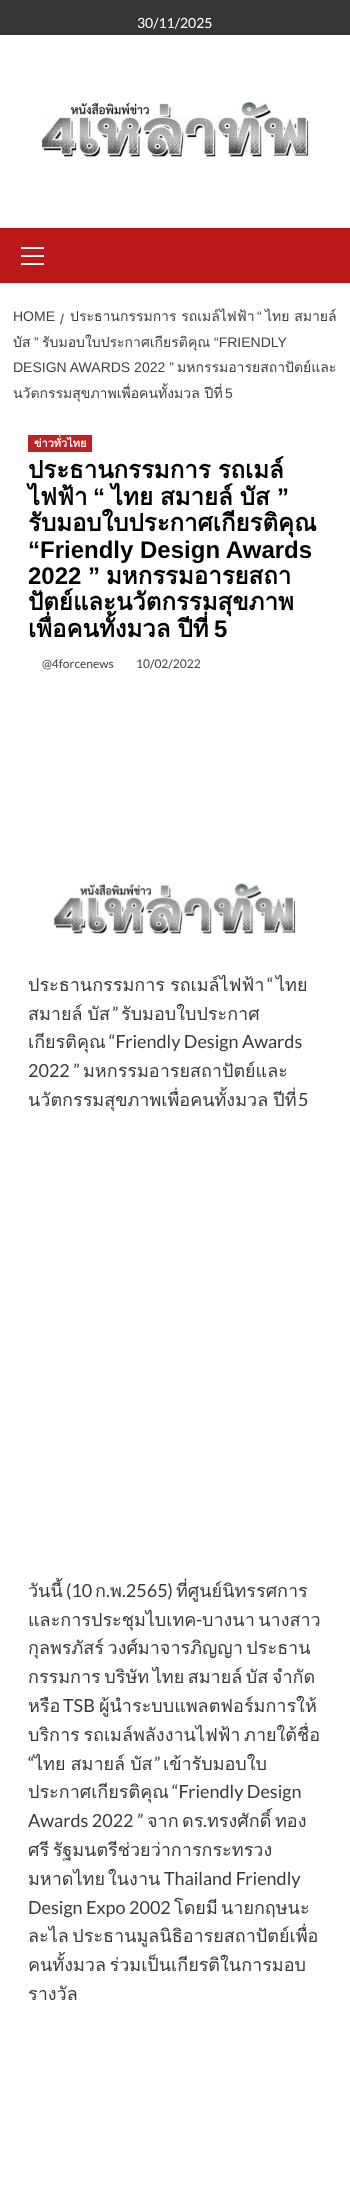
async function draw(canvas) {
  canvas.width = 350;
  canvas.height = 2207;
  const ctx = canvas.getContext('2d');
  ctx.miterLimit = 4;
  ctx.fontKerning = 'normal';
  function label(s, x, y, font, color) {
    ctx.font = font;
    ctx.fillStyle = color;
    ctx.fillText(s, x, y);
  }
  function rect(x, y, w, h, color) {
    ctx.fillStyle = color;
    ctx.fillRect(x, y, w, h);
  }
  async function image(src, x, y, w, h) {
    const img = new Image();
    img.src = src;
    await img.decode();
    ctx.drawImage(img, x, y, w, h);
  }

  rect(0, 0, 350, 2207, '#fff');
  rect(0, 0, 350, 35, '#353535');
  label('30/11/2025', 137, 28, '14px Lato', '#fff');
  await image('assets/img1.png', 41, 100, 268, 57);
  rect(0, 228, 350, 55, '#bb1919');
  rect(21, 255, 23, 2, '#fff');
  rect(21, 247, 23, 2, '#fff');
  rect(21, 263, 23, 2, '#fff');
  label('/', 60, 324, '14px Liberation Sans', '#404040');
  label('ประธานกรรมการ รถเมล์ไฟฟ้า', 70, 321, '14px Loma', '#404040');
  label('“', 257, 321, '14px Liberation Sans', '#404040');
  label('ไทย สมายล์', 265, 321, '14px Loma', '#404040');
  label('บัส', 13, 347, '14px Loma', '#404040');
  label('”', 34, 347, '14px Liberation Sans', '#404040');
  label('รับมอบใบประกาศเกียรติคุณ', 42, 347, '14px Loma', '#404040');
  label('“FRIENDLY', 214, 347, '14px Liberation Sans', '#404040');
  label('DESIGN AWARDS 2022 ”', 13, 372, '14px Liberation Sans', '#404040');
  label('มหกรรมอารยสถาปัตย์และ', 177, 372, '14px Loma', '#404040');
  label('นวัตกรรมสุขภาพเพื่อคนทั้งมวล ปีที่', 13, 398, '14px Loma', '#404040');
  label('5', 225, 398, '14px Liberation Sans', '#404040');
  label('HOME', 13, 321, '14px Liberation Sans', '#404040');
  rect(28, 435, 64, 17, '#be2222');
  label('ข่าวทั่วไทย', 34, 447, 'bold 11px Loma', '#fff');
  ctx.wordSpacing = '-1px';
  label('ประธานกรรมการ รถเมล์', 28, 478, 'bold 24px Loma', '#000');
  ctx.wordSpacing = '0px';
  label('ไฟฟ้า', 28, 505, 'bold 24px Loma', '#000');
  label('“', 93, 505, 'bold 24px Liberation Sans', '#000');
  ctx.wordSpacing = '-1px';
  label('ไทย สมายล์ บัส', 111, 505, 'bold 24px Loma', '#000');
  ctx.wordSpacing = '0px';
  label('”', 277, 505, 'bold 24px Liberation Sans', '#000');
  label('รับมอบใบประกาศเกียรติคุณ', 28, 531, 'bold 24px Loma', '#000');
  label('“Friendly Design Awards', 28, 558, 'bold 24px Liberation Sans', '#000');
  label('2022 ”', 28, 584, 'bold 24px Liberation Sans', '#000');
  label('มหกรรมอารยสถา', 106, 584, 'bold 24px Loma', '#000');
  label('ปัตย์และนวัตกรรมสุขภาพ', 28, 610, 'bold 24px Loma', '#000');
  ctx.wordSpacing = '-1px';
  label('เพื่อคนทั้งมวล ปีที่', 28, 637, 'bold 24px Loma', '#000');
  ctx.wordSpacing = '0px';
  label('5', 214, 637, 'bold 24px Liberation Sans', '#000');
  label('@4forcenews', 42, 668, '12px Lato', '#404040');
  label('10/02/2022', 136, 668, '12px Lato', '#404040');
  await image('assets/img2.png', 53, 882, 243, 52);
  ctx.wordSpacing = '-1px';
  label('ประธานกรรมการ รถเมล์ไฟฟ้า', 28, 991, '18px Loma', '#3a3a3a');
  ctx.wordSpacing = '0px';
  label('“', 267, 991, '18px Lato', '#3a3a3a');
  label('ไทย', 276, 991, '18px Loma', '#3a3a3a');
  ctx.wordSpacing = '-1px';
  label('สมายล์ บัส', 28, 1020, '18px Loma', '#3a3a3a');
  ctx.wordSpacing = '0px';
  label('”', 112, 1020, '18px Lato', '#3a3a3a');
  label('รับมอบใบประกาศ', 121, 1020, '18px Loma', '#3a3a3a');
  label('เกียรติคุณ', 28, 1048, '18px Loma', '#3a3a3a');
  label('“Friendly Design Awards', 109, 1048, '18px Lato', '#3a3a3a');
  label('2022 ”', 28, 1077, '18px Lato', '#3a3a3a');
  label('มหกรรมอารยสถาปัตย์และ', 83, 1077, '18px Loma', '#3a3a3a');
  ctx.wordSpacing = '-1px';
  label('นวัตกรรมสุขภาพเพื่อคนทั้งมวล ปีที่', 28, 1106, '18px Loma', '#3a3a3a');
  ctx.wordSpacing = '0px';
  label('5', 298, 1106, '18px Lato', '#3a3a3a');
  label('วันนี้', 28, 1597, '18px Loma', '#3a3a3a');
  label('(10', 66, 1597, '18px Lato', '#3a3a3a');
  label('ก', 95, 1597, '18px Loma', '#3a3a3a');
  label('.', 106, 1597, '18px Lato', '#3a3a3a');
  label('พ', 110, 1597, '18px Loma', '#3a3a3a');
  label('.2565)', 122, 1597, '18px Lato', '#3a3a3a');
  label('ที่ศูนย์นิทรรศการ', 176, 1597, '18px Loma', '#3a3a3a');
  label('และการประชุมไบเทค', 28, 1626, '18px Loma', '#3a3a3a');
  label('-', 196, 1626, '18px Lato', '#3a3a3a');
  ctx.wordSpacing = '-2.5px';
  label('บางนา นางสาว', 202, 1626, '18px Loma', '#3a3a3a');
  label('กุลพรภัสร์ วงศ์มาจารภิญญา ประธาน', 28, 1654, '18px Loma', '#3a3a3a');
  label('กรรมการ บริษัท ไทย สมายล์ บัส จำกัด', 28, 1683, '18px Loma', '#3a3a3a');
  ctx.wordSpacing = '0px';
  label('หรือ', 28, 1712, '18px Loma', '#3a3a3a');
  label('TSB', 63, 1712, '18px Lato', '#3a3a3a');
  label('ผู้นำระบบแพลตฟอร์มการให้', 99, 1712, '18px Loma', '#3a3a3a');
  ctx.wordSpacing = '-2.5px';
  label('บริการ รถเมล์พลังงานไฟฟ้า ภายใต้ชื่อ', 28, 1741, '18px Loma', '#3a3a3a');
  ctx.wordSpacing = '0px';
  label('“', 28, 1770, '18px Lato', '#3a3a3a');
  ctx.wordSpacing = '-1px';
  label('ไทย สมายล์ บัส', 34, 1770, '18px Loma', '#3a3a3a');
  ctx.wordSpacing = '0px';
  label('”', 154, 1770, '18px Lato', '#3a3a3a');
  label('เข้ารับมอบใบ', 163, 1770, '18px Loma', '#3a3a3a');
  label('ประกาศเกียรติคุณ', 28, 1798, '18px Loma', '#3a3a3a');
  label('“Friendly Design', 172, 1798, '18px Lato', '#3a3a3a');
  label('Awards 2022 ”', 28, 1827, '18px Lato', '#3a3a3a');
  label('จาก', 147, 1827, '18px Loma', '#3a3a3a');
  label('ดร', 182, 1827, '18px Loma', '#3a3a3a');
  label('.', 203, 1827, '18px Lato', '#3a3a3a');
  label('ทรงศักดิ์', 207, 1827, '18px Loma', '#3a3a3a');
  label('ทอง', 275, 1827, '18px Loma', '#3a3a3a');
  ctx.wordSpacing = '-2.5px';
  label('ศรี รัฐมนตรีช่วยว่าการกระทรวง', 28, 1856, '18px Loma', '#3a3a3a');
  ctx.wordSpacing = '0px';
  label('มหาดไทย', 28, 1885, '18px Loma', '#3a3a3a');
  label('ในงาน', 108, 1885, '18px Loma', '#3a3a3a');
  label('Thailand Friendly', 164, 1885, '18px Lato', '#3a3a3a');
  label('Design Expo 2002', 28, 1914, '18px Lato', '#3a3a3a');
  label('โดยมี', 174, 1914, '18px Loma', '#3a3a3a');
  label('นายกฤษนะ', 221, 1914, '18px Loma', '#3a3a3a');
  ctx.wordSpacing = '-2.5px';
  label('ละไล ประธานมูลนิธิอารยสถาปัตย์เพื่อ', 28, 1942, '18px Loma', '#3a3a3a');
  label('คนทั้งมวล ร่วมเป็นเกียรติในการมอบ', 28, 1971, '18px Loma', '#3a3a3a');
  ctx.wordSpacing = '0px';
  label('รางวัล', 28, 2000, '18px Loma', '#3a3a3a');
}

draw(document.querySelector('canvas'));
